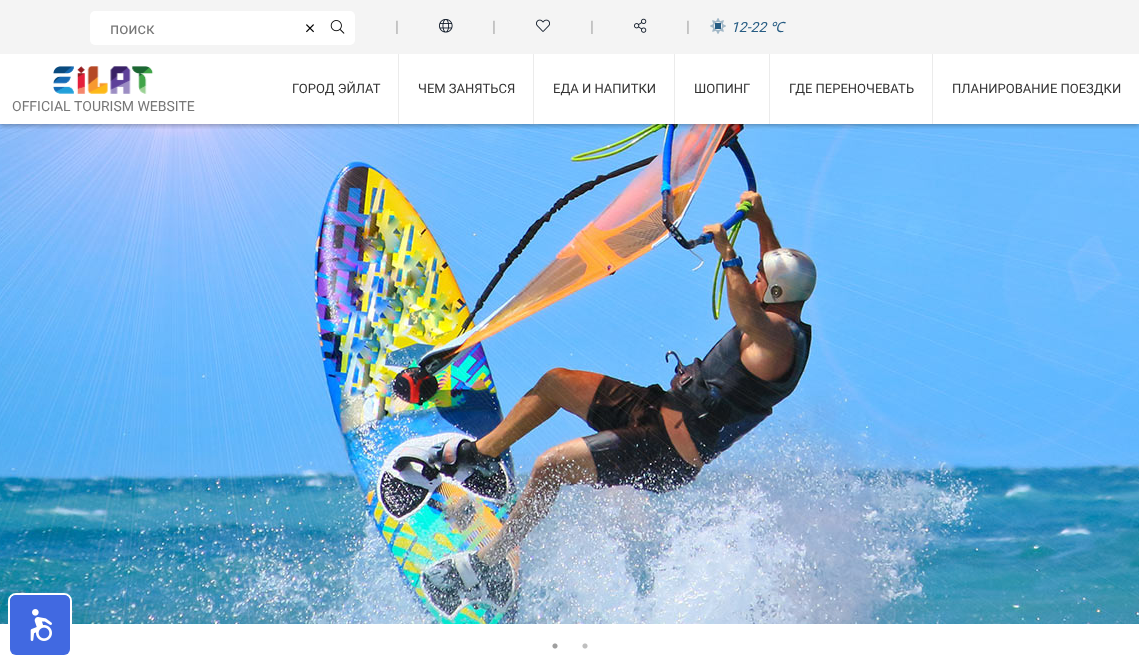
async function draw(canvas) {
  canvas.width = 1139;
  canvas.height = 665;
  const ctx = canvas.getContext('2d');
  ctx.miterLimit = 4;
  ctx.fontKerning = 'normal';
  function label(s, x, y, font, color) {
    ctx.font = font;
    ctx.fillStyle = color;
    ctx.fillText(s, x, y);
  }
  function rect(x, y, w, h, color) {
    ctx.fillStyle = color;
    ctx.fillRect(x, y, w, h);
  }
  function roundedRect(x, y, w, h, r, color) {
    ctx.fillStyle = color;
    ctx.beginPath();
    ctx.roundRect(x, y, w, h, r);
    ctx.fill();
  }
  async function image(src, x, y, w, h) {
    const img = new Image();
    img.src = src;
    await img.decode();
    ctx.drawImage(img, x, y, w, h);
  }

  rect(0, 0, 1139, 665, '#fff');
  await image('assets/img8.png', 0, 124, 1139, 500);
  ctx.save();
  ctx.beginPath();
  ctx.rect(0, 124, 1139, 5);
  ctx.clip();
  ctx.fillStyle = '#00000040';
  ctx.filter = 'blur(2px)';
  ctx.beginPath();
  ctx.rect(0, 2, 1139, 124);
  ctx.fill();
  ctx.filter = 'none';
  ctx.restore();
  rect(0, 0, 1139, 54, '#f4f4f4');
  roundedRect(90, 11, 265, 34, 5, '#fff');
  label('поиск', 110, 34, '16px Roboto', '#777');
  await image('assets/img1.png', 330, 20, 15, 14);
  await image('assets/img2.png', 306, 24, 8, 9);
  label('|', 395, 32, '16px Roboto', '#aaa');
  await image('assets/img3.png', 439, 19, 14, 14);
  label('|', 492, 32, '16px Roboto', '#aaa');
  await image('assets/img4.png', 536, 19, 14, 13);
  label('|', 590, 32, '16px Roboto', '#aaa');
  await image('assets/img5.png', 634, 18, 13, 15);
  label('|', 686, 32, '16px Roboto', '#aaa');
  rect(715, 23, 6, 6, '#265c83');
  await image('assets/img6.png', 710, 18, 16, 16);
  label('12-22', 731, 32, 'italic 14px Roboto', '#265c83');
  label('℃', 770, 32, 'italic 14px Noto Sans', '#265c83');
  rect(398, 54, 1, 70, '#ebebeb');
  label('ГОРОД ЭЙЛАТ', 292, 93, '13px Roboto', '#333');
  rect(533, 54, 1, 70, '#ebebeb');
  label('ЧЕМ ЗАНЯТЬСЯ', 418, 93, '13px Roboto', '#333');
  rect(674, 54, 1, 70, '#ebebeb');
  label('ЕДА И НАПИТКИ', 553, 93, '13px Roboto', '#333');
  rect(769, 54, 1, 70, '#ebebeb');
  label('ШОПИНГ', 694, 93, '13px Roboto', '#333');
  rect(932, 54, 1, 70, '#ebebeb');
  label('ГДЕ ПЕРЕНОЧЕВАТЬ', 789, 93, '13px Roboto', '#333');
  label('ПЛАНИРОВАНИЕ ПОЕЗДКИ', 952, 93, '13px Roboto', '#333');
  await image('assets/img7.png', 53, 66, 101, 28);
  label('OFFICIAL TOURISM WEBSITE', 12, 111, '14px Roboto', '#777');
  await image('assets/img9.png', 552, 643, 6, 6);
  await image('assets/img10.png', 582, 643, 6, 6);
  ctx.beginPath();
  ctx.roundRect(9, 594, 62, 62, 7);
  ctx.strokeStyle = '#fff';
  ctx.lineWidth = 2;
  ctx.stroke();
  roundedRect(10, 595, 60, 60, 6, '#4169e1');
  await image('assets/img11.png', 30, 609, 22, 32);
}

draw(document.querySelector('canvas'));
